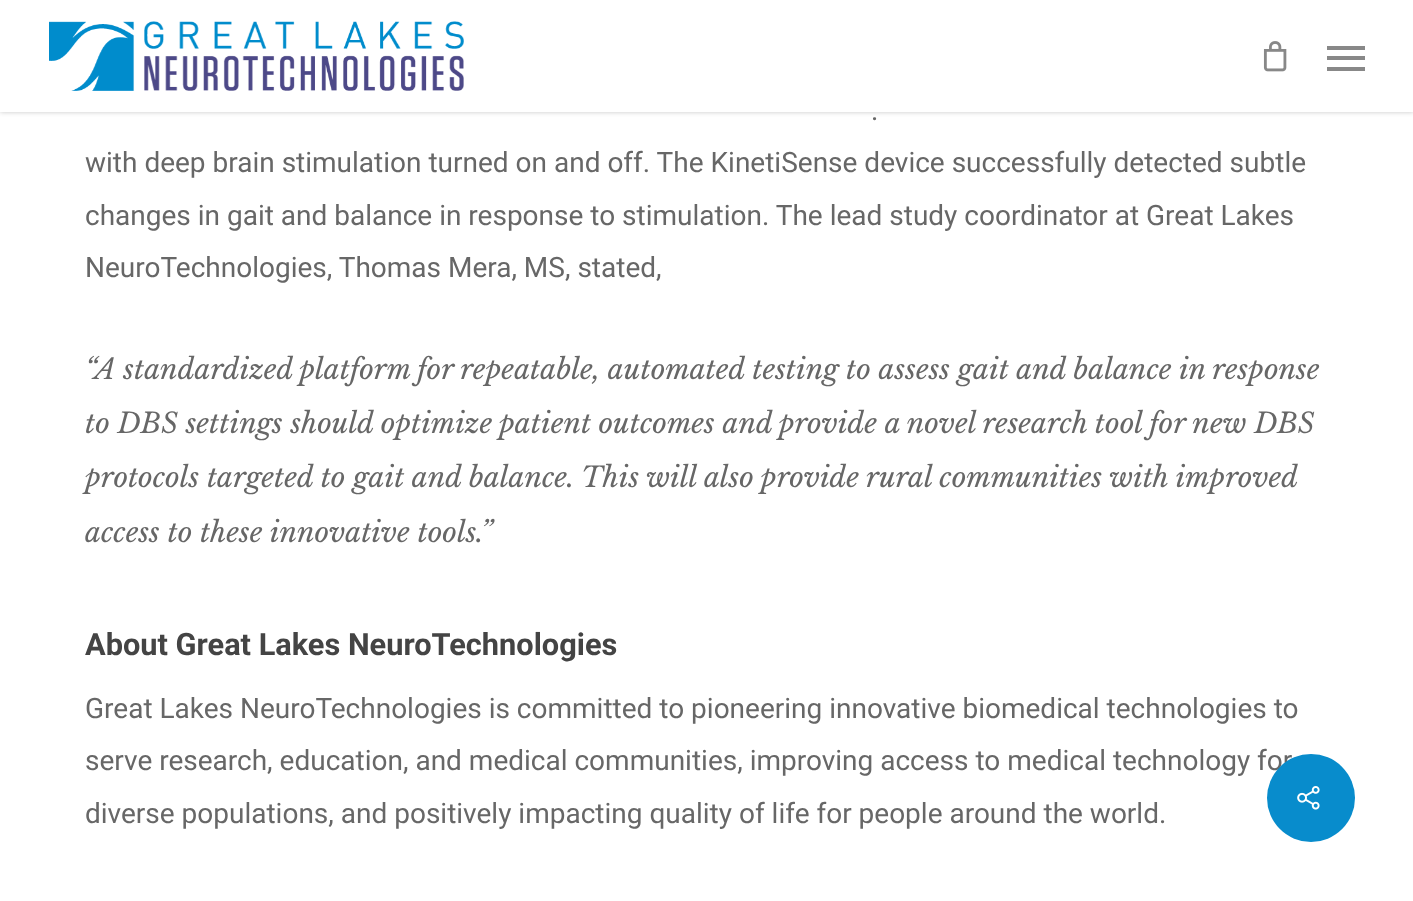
async function draw(canvas) {
  canvas.width = 1413;
  canvas.height = 901;
  const ctx = canvas.getContext('2d');
  ctx.miterLimit = 4;
  ctx.fontKerning = 'normal';
  function label(s, x, y, font, color) {
    ctx.font = font;
    ctx.fillStyle = color;
    ctx.fillText(s, x, y);
  }
  function rect(x, y, w, h, color) {
    ctx.fillStyle = color;
    ctx.fillRect(x, y, w, h);
  }
  async function image(src, x, y, w, h) {
    const img = new Image();
    img.src = src;
    await img.decode();
    ctx.drawImage(img, x, y, w, h);
  }

  rect(0, 0, 1413, 901, '#fff');
  ctx.fillStyle = '#00000038';
  ctx.filter = 'blur(2.5px)';
  ctx.beginPath();
  ctx.rect(0, 0, 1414, 112);
  ctx.fill();
  ctx.filter = 'none';
  rect(0, 0, 1413, 112, '#fff');
  await image('assets/img1.png', 49, 21, 415, 70);
  await image('assets/img2.png', 1263, 41, 24, 31);
  rect(1327, 46, 38, 4, '#888');
  rect(1327, 67, 38, 4, '#888');
  rect(1327, 56, 38, 4, '#888');
  label('.', 871, 120, '28px Roboto', '#676767');
  label('with deep brain stimulation turned on and off. The KinetiSense device successfully detected subtle', 85, 172, '28px Roboto', '#676767');
  label('changes in gait and balance in response to stimulation. The lead study coordinator at Great Lakes', 85, 225, '28px Roboto', '#676767');
  label('NeuroTechnologies, Thomas Mera, MS, stated,', 85, 277, '28px Roboto', '#676767');
  label('“A standardized platform for repeatable, automated testing to assess gait and balance in response', 85, 379, 'italic 28px Libre Baskerville', '#676767');
  label('to DBS settings should optimize patient outcomes and provide a novel research tool for new DBS', 85, 433, 'italic 28px Libre Baskerville', '#676767');
  label('protocols targeted to gait and balance. This will also provide rural communities with improved', 85, 487, 'italic 28px Libre Baskerville', '#676767');
  label('access to these innovative tools.”', 85, 542, 'italic 28px Libre Baskerville', '#676767');
  label('About Great Lakes NeuroTechnologies', 85, 655, 'bold 30.75px Roboto', '#444');
  label('Great Lakes NeuroTechnologies is committed to pioneering innovative biomedical technologies to', 85, 718, '28px Roboto', '#676767');
  label('serve research, education, and medical communities, improving access to medical technology for', 85, 770, '28px Roboto', '#676767');
  label('diverse populations, and positively impacting quality of life for people around the world.', 85, 823, '28px Roboto', '#676767');
  ctx.fillStyle = '#088ccc';
  ctx.beginPath();
  ctx.arc(1311, 798, 44, 0, 2 * Math.PI);
  ctx.fill();
  await image('assets/img3.png', 1297, 786, 23, 24);
}

draw(document.querySelector('canvas'));
